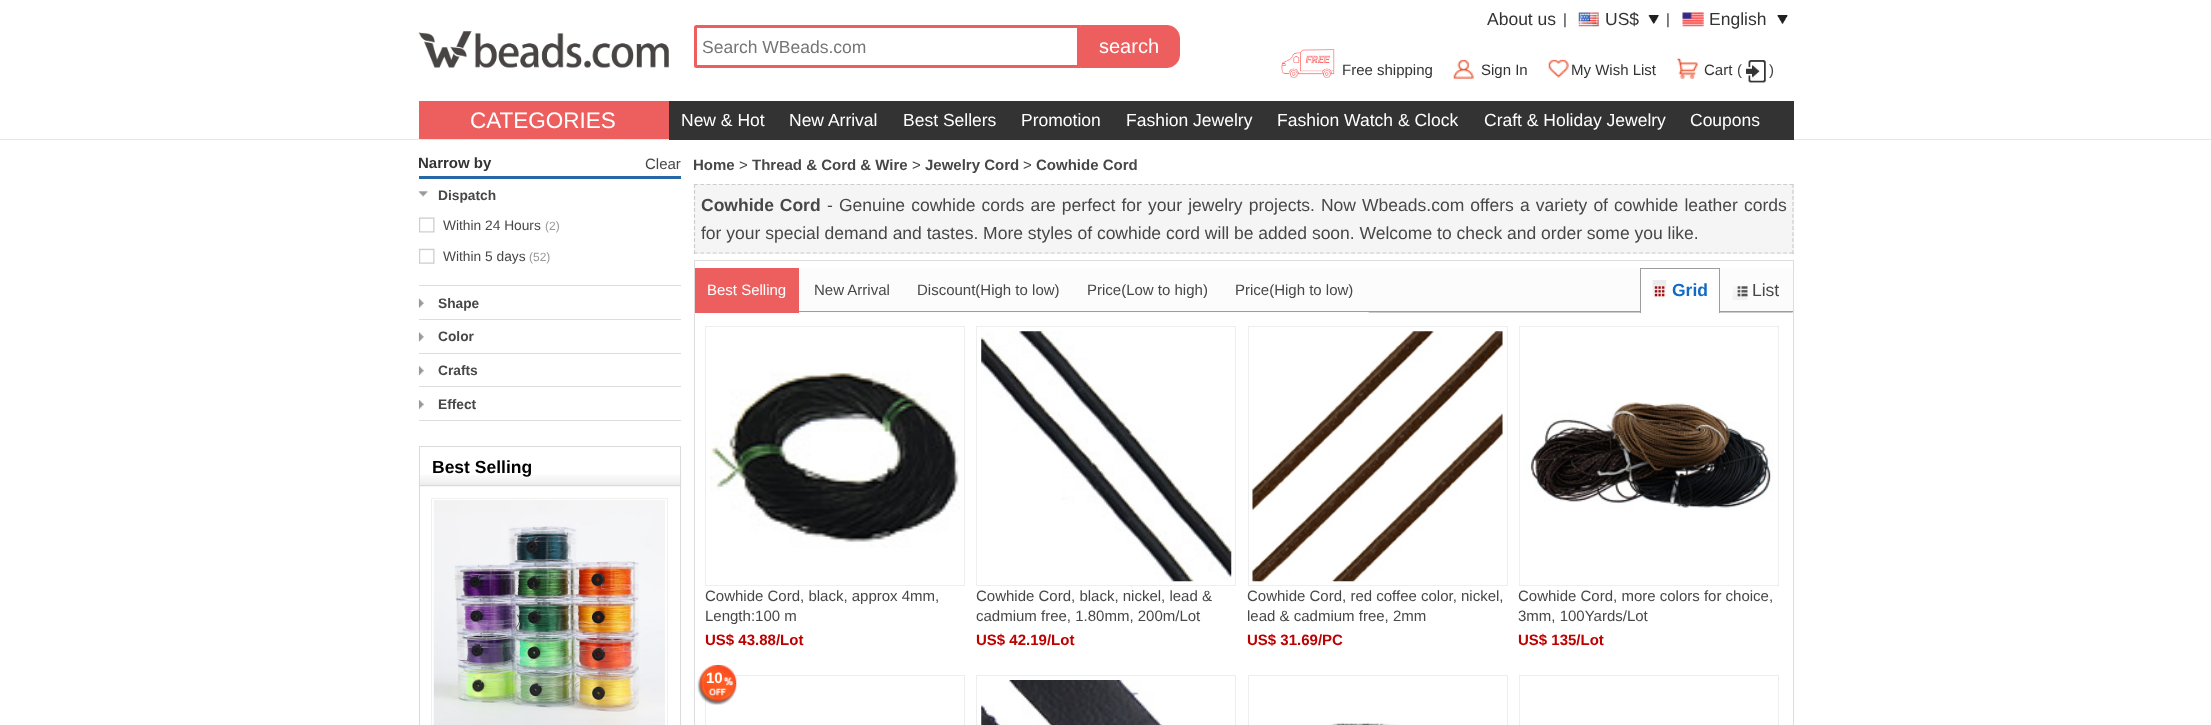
async function draw(canvas) {
  canvas.width = 2211;
  canvas.height = 725;
  const ctx = canvas.getContext('2d');
  ctx.miterLimit = 4;
  ctx.fontKerning = 'normal';
  function label(s, x, y, font, color) {
    ctx.font = font;
    ctx.fillStyle = color;
    ctx.fillText(s, x, y);
  }
  function rect(x, y, w, h, color) {
    ctx.fillStyle = color;
    ctx.fillRect(x, y, w, h);
  }
  async function image(src, x, y, w, h) {
    const img = new Image();
    img.src = src;
    await img.decode();
    ctx.drawImage(img, x, y, w, h);
  }
  let path;

  rect(0, 0, 2211, 725, '#fff');
  await image('assets/img1.png', 418, 31, 251, 37);
  ctx.beginPath();
  ctx.roundRect(695.5, 26.5, 383, 40, [1, 0, 0, 1]);
  ctx.strokeStyle = '#ed5f5f';
  ctx.lineWidth = 3;
  ctx.stroke();
  label('Search WBeads.com', 702, 53, '17.5px Liberation Sans', '#757575');
  ctx.fillStyle = '#ed5f5f';
  ctx.beginPath();
  ctx.roundRect(1080.5, 25.5, 99, 42, [0, 12.5, 12.5, 0]);
  ctx.fill();
  ctx.lineWidth = 1;
  ctx.stroke();
  label('search', 1099, 53, '20px Liberation Sans', '#fff');
  label('About us', 1487, 25, '17.5px Liberation Sans', '#333');
  label('|', 1563, 24, '15px Liberation Sans', '#333');
  await image('assets/img2.png', 1578, 12, 21, 15);
  label('US$', 1605, 25, '17.5px Liberation Sans', '#333');
  await image('assets/img3.png', 1648, 15, 11, 9);
  label('|', 1666, 24, '15px Liberation Sans', '#333');
  await image('assets/img4.png', 1682, 12, 22, 15);
  label('English', 1709, 25, '17.5px Liberation Sans', '#333');
  await image('assets/img5.png', 1777, 15, 11, 9);
  await image('assets/img6.png', 1281, 49, 54, 29);
  label('Free shipping', 1342, 75, '15px Liberation Sans', '#333');
  await image('assets/img7.png', 1453, 59, 21, 20);
  label('Sign In', 1481, 75, '15px Liberation Sans', '#333');
  await image('assets/img8.png', 1548, 59, 21, 19);
  label('My Wish List', 1571, 75, '15px Liberation Sans', '#333');
  await image('assets/img9.png', 1677, 58, 21, 21);
  label('Cart', 1704, 75, '15px Liberation Sans', '#333');
  label('(', 1737, 75, '15px Liberation Sans', '#474747');
  await image('assets/img10.png', 1746, 60, 21, 23);
  label(')', 1769, 75, '15px Liberation Sans', '#474747');
  rect(0, 139, 2211, 1, '#e7e7e7');
  rect(419, 101, 250, 38, '#ed5f5f');
  label('CATEGORIES', 470, 128, '22.5px Liberation Sans', '#fff');
  rect(669, 101, 1125, 39, '#333');
  label('New & Hot', 681, 126, '17.5px Liberation Sans', '#fff');
  label('New Arrival', 789, 126, '17.5px Liberation Sans', '#fff');
  label('Best Sellers', 903, 126, '17.5px Liberation Sans', '#fff');
  label('Promotion', 1021, 126, '17.5px Liberation Sans', '#fff');
  label('Fashion Jewelry', 1126, 126, '17.5px Liberation Sans', '#fff');
  label('Fashion Watch & Clock', 1277, 126, '17.5px Liberation Sans', '#fff');
  label('Craft & Holiday Jewelry', 1484, 126, '17.5px Liberation Sans', '#fff');
  label('Coupons', 1690, 126, '17.5px Liberation Sans', '#fff');
  rect(419, 176, 262, 3, '#2667a5');
  label('Narrow by', 418, 168, 'bold 15px Liberation Sans', '#333');
  label('Clear', 645, 169, '15px Liberation Sans', '#474747');
  await image('assets/img11.png', 418, 191, 10, 6);
  label('Dispatch', 438, 200, 'bold 13.75px Liberation Sans', '#474747');
  rect(419, 285, 262, 1, '#ddd');
  await image('assets/img12.png', 419, 217, 16, 16);
  label('Within 24 Hours', 443, 230, '13.75px Liberation Sans', '#474747');
  label('(2)', 545, 230, '12px Liberation Sans', '#999');
  await image('assets/img13.png', 419, 248, 16, 16);
  label('Within 5 days', 443, 261, '13.75px Liberation Sans', '#474747');
  label('(52)', 529, 261, '12px Liberation Sans', '#999');
  await image('assets/img14.png', 418, 298, 6, 10);
  label('Shape', 438, 308, 'bold 13.75px Liberation Sans', '#474747');
  rect(419, 319, 262, 1, '#ddd');
  await image('assets/img15.png', 418, 332, 6, 10);
  label('Color', 438, 341, 'bold 13.75px Liberation Sans', '#474747');
  rect(419, 353, 262, 1, '#ddd');
  await image('assets/img16.png', 418, 366, 6, 10);
  label('Crafts', 438, 375, 'bold 13.75px Liberation Sans', '#474747');
  rect(419, 386, 262, 1, '#ddd');
  await image('assets/img17.png', 418, 399, 6, 10);
  label('Effect', 438, 409, 'bold 13.75px Liberation Sans', '#474747');
  rect(419, 420, 262, 1, '#ddd');
  await image('assets/img18.png', 418, 475, 264, 12);
  ctx.strokeStyle = '#dcdbdc';
  ctx.strokeRect(419.5, 446.5, 261, 39);
  label('Best Selling', 432, 473, 'bold 17.5px Liberation Sans', '#000');
  rect(680, 486, 1, 239, '#dcdbdc');
  rect(419, 486, 1, 239, '#dcdbdc');
  ctx.strokeStyle = '#f0f0f0';
  ctx.strokeRect(431.5, 498.5, 236, 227);
  await image('assets/img19.png', 433, 500, 232, 225);
  label('Home', 693, 170, 'bold 15px Liberation Sans', '#474747');
  label('>', 739, 170, '15px Liberation Sans', '#474747');
  label('Thread & Cord & Wire', 752, 170, 'bold 15px Liberation Sans', '#474747');
  label('>', 912, 170, '15px Liberation Sans', '#474747');
  label('Jewelry Cord', 925, 170, 'bold 15px Liberation Sans', '#474747');
  label('>', 1023, 170, '15px Liberation Sans', '#474747');
  label('Cowhide Cord', 1036, 170, 'bold 15px Liberation Sans', '#474747');
  rect(694, 184, 1100, 70, '#f5f5f5');
  path = new Path2D('M694 184.5H1794');
  ctx.strokeStyle = '#ccc';
  ctx.lineWidth = 1.2;
  ctx.setLineDash([3.75, 2.51]);
  ctx.stroke(path);
  path = new Path2D('M1793 184V254');
  ctx.setLineDash([3.75, 2.27]);
  ctx.stroke(path);
  path = new Path2D('M694 253H1794');
  ctx.setLineDash([3.75, 2.51]);
  ctx.stroke(path);
  path = new Path2D('M694.5 184V254');
  ctx.setLineDash([3.75, 2.27]);
  ctx.stroke(path);
  ctx.wordSpacing = '1px';
  label('Cowhide Cord', 701, 211, 'bold 17.5px Liberation Sans', '#474747');
  ctx.wordSpacing = '1.25px';
  label('- Genuine cowhide cords are perfect for your jewelry projects. Now Wbeads.com offers a variety of cowhide leather cords', 827, 211, '17.5px Liberation Sans', '#474747');
  ctx.wordSpacing = '0px';
  label('for your special demand and tastes. More styles of cowhide cord will be added soon. Welcome to check and order some you like.', 701, 239, '17.5px Liberation Sans', '#474747');
  ctx.strokeStyle = '#ddd';
  ctx.lineWidth = 1;
  ctx.setLineDash([]);
  ctx.strokeRect(694.5, 260.5, 1099, 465);
  rect(799, 268, 994, 45, '#fcfcfc');
  rect(799, 311, 994, 1, '#9c9c9c');
  rect(695, 268, 104, 45, '#ed5f5f');
  label('Best Selling', 707, 295, '15px Liberation Sans', '#fff');
  label('New Arrival', 814, 295, '15px Liberation Sans', '#474747');
  label('Discount(High to low)', 917, 295, '15px Liberation Sans', '#474747');
  label('Price(Low to high)', 1087, 295, '15px Liberation Sans', '#474747');
  label('Price(High to low)', 1235, 295, '15px Liberation Sans', '#474747');
  await image('assets/img20.png', 1368, 312, 425, 1);
  rect(1641, 269, 78, 44, '#fff');
  rect(1640, 268, 80, 1, '#9c9c9c');
  rect(1719, 268, 1, 45, '#9c9c9c');
  rect(1640, 268, 1, 45, '#9c9c9c');
  await image('assets/img21.png', 1652, 280, 15, 20);
  label('Grid', 1672, 296, 'bold 17.5px Liberation Sans', '#0f6bc3');
  await image('assets/img22.png', 1732, 286, 16, 14);
  label('List', 1752, 296, '17.5px Liberation Sans', '#474747');
  ctx.strokeStyle = '#eee';
  ctx.strokeRect(705.5, 326.5, 259, 259);
  await image('assets/img23.png', 710, 371, 250, 177);
  label('Cowhide Cord, black, approx 4mm,', 705, 601, '15px Liberation Sans', '#474747');
  label('Length:100 m', 705, 621, '15px Liberation Sans', '#474747');
  label('US$ 43.88/Lot', 705, 645, 'bold 15px Liberation Sans', '#bd0000');
  ctx.strokeRect(976.5, 326.5, 259, 259);
  await image('assets/img24.png', 981, 331, 251, 251);
  label('Cowhide Cord, black, nickel, lead &', 976, 601, '15px Liberation Sans', '#474747');
  label('cadmium free, 1.80mm, 200m/Lot', 976, 621, '15px Liberation Sans', '#474747');
  label('US$ 42.19/Lot', 976, 645, 'bold 15px Liberation Sans', '#bd0000');
  ctx.strokeRect(1248.5, 326.5, 259, 259);
  await image('assets/img25.png', 1252, 331, 251, 251);
  label('Cowhide Cord, red coffee color, nickel,', 1247, 601, '15px Liberation Sans', '#474747');
  label('lead & cadmium free, 2mm', 1247, 621, '15px Liberation Sans', '#474747');
  label('US$ 31.69/PC', 1247, 645, 'bold 15px Liberation Sans', '#bd0000');
  ctx.strokeRect(1519.5, 326.5, 259, 259);
  await image('assets/img26.png', 1524, 402, 250, 108);
  label('Cowhide Cord, more colors for choice,', 1518, 601, '15px Liberation Sans', '#474747');
  label('3mm, 100Yards/Lot', 1518, 621, '15px Liberation Sans', '#474747');
  label('US$ 135/Lot', 1518, 645, 'bold 15px Liberation Sans', '#bd0000');
  ctx.strokeRect(705.5, 675.5, 259, 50);
  await image('assets/img27.png', 697, 665, 40, 40);
  label('10', 706, 683, 'bold 15px Liberation Sans', '#fff');
  ctx.strokeRect(976.5, 675.5, 259, 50);
  await image('assets/img28.png', 981, 680, 183, 45);
  ctx.strokeRect(1248.5, 675.5, 259, 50);
  await image('assets/img29.png', 1329, 722, 70, 3);
  ctx.strokeRect(1519.5, 675.5, 259, 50);
}

draw(document.querySelector('canvas'));
